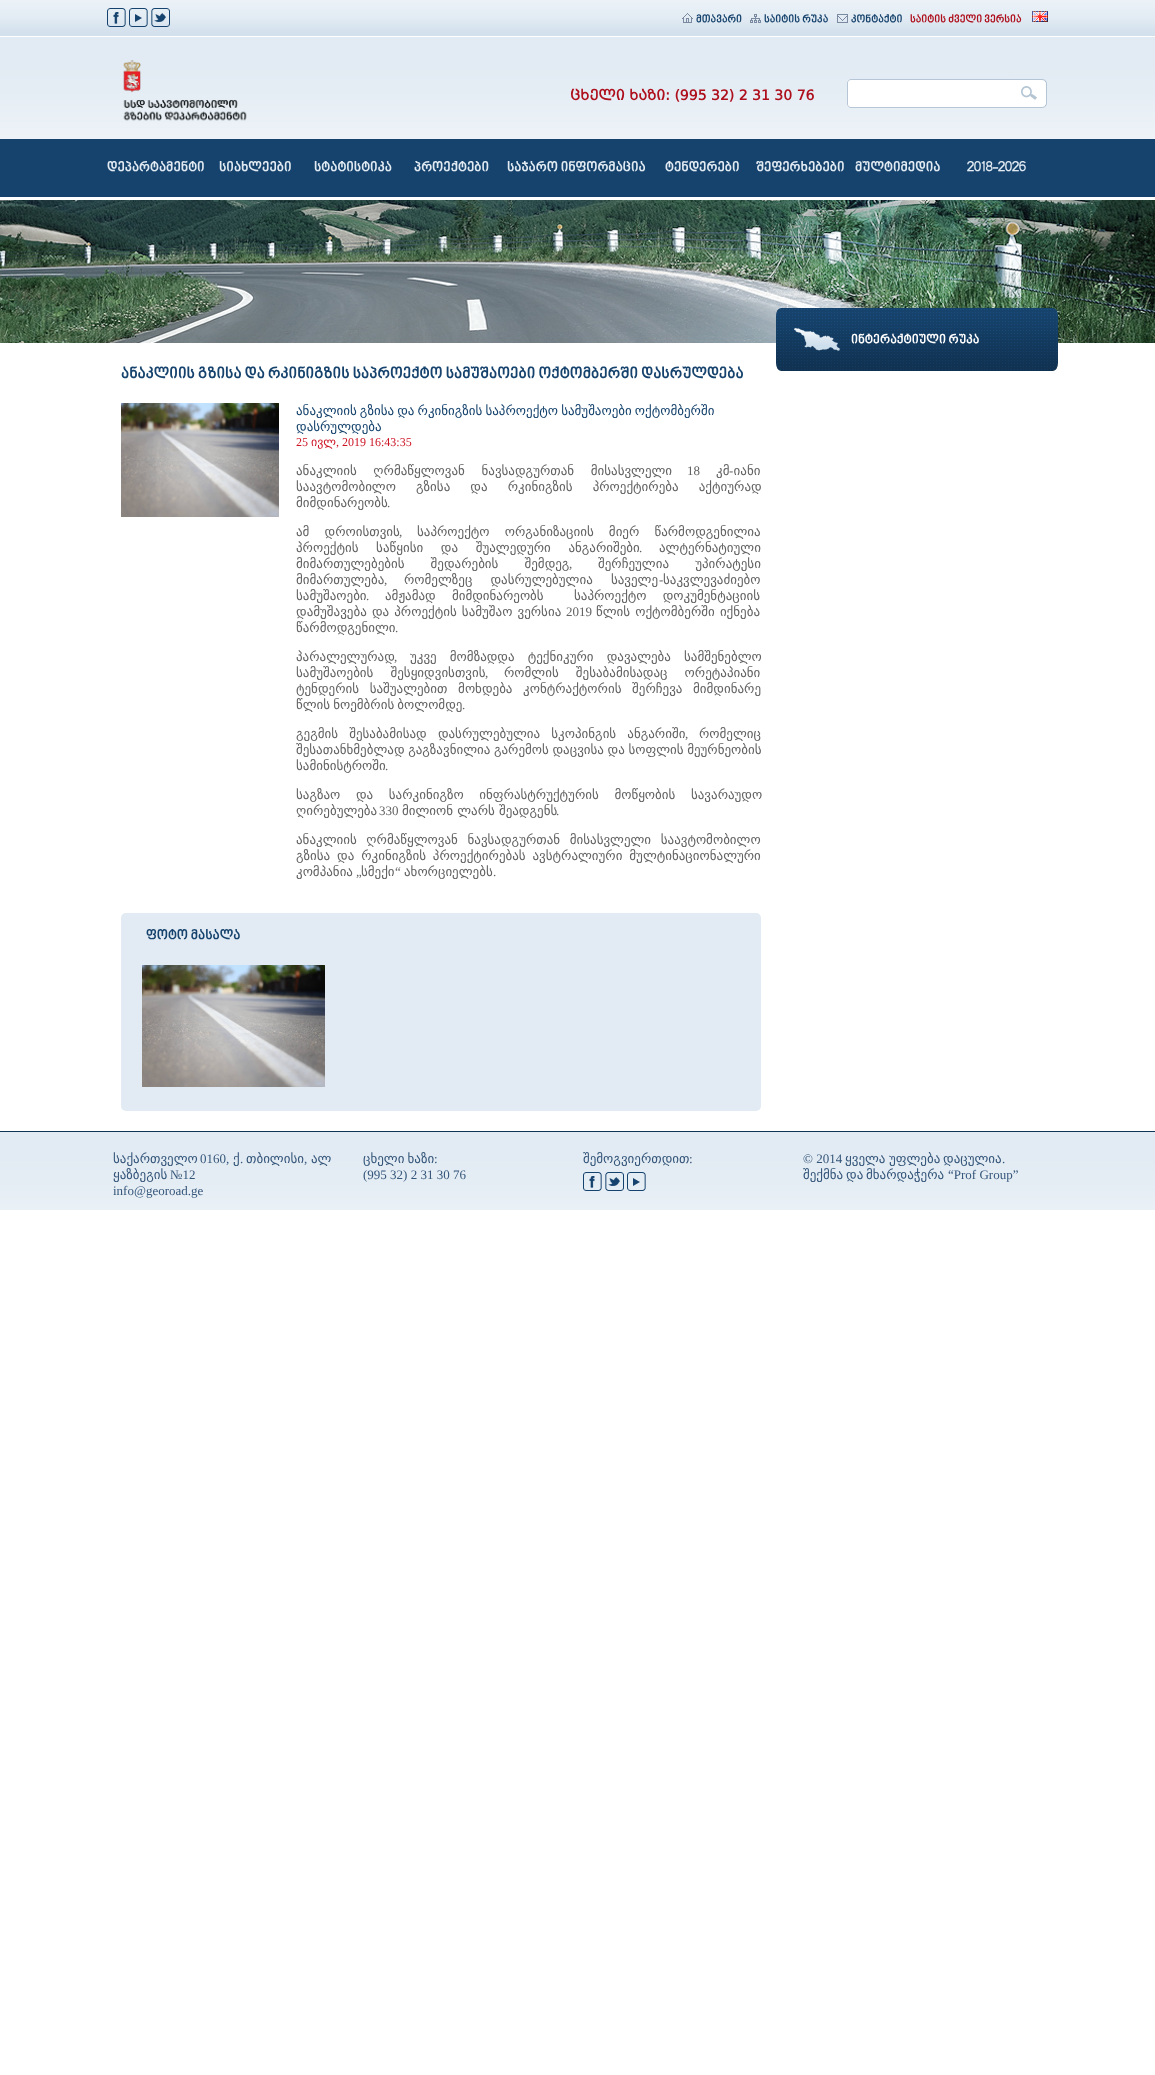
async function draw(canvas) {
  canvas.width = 1155;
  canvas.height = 2075;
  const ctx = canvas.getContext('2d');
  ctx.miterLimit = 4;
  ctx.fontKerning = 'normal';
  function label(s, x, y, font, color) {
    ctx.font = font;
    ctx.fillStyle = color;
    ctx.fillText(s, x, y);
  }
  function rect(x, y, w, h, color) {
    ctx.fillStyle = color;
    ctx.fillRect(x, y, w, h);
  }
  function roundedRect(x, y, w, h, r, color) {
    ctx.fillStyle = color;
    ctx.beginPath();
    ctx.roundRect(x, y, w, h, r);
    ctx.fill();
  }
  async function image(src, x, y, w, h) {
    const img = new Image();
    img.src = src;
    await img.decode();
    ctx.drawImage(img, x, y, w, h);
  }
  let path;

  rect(0, 0, 1155, 2075, '#fff');
  await image('assets/img1.png', 0, 0, 1155, 36);
  await image('assets/img2.png', 107, 8, 19, 19);
  await image('assets/img3.png', 129, 8, 19, 19);
  await image('assets/img4.png', 151, 8, 19, 19);
  await image('assets/img5.png', 682, 13, 11, 10);
  label('მთავარი', 696, 23, 'italic bold 11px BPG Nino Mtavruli', '#16436d');
  await image('assets/img6.png', 750, 14, 11, 9);
  label('საიტის რუკა', 764, 23, 'italic bold 11px BPG Nino Mtavruli', '#16436d');
  await image('assets/img7.png', 837, 14, 11, 9);
  label('კონტაქტი', 851, 23, 'italic bold 11px BPG Nino Mtavruli', '#16436d');
  label('საიტის ძველი ვერსია', 910, 23, 'italic bold 11px BPG Nino Mtavruli', '#ae0f1c');
  await image('assets/img8.png', 1032, 11, 16, 11);
  await image('assets/img9.png', 0, 37, 1155, 102);
  await image('assets/img10.png', 123, 60, 124, 61);
  label('ცხელი ხაზი: (995 32) 2 31 30 76', 570, 100, 'bold 14px "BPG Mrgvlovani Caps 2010"', '#ae0f1c');
  ctx.fillStyle = '#fff';
  ctx.beginPath();
  ctx.roundRect(847, 79, 166, 29, [4, 0, 0, 4]);
  ctx.fill();
  ctx.fillStyle = '#b7c6d6';
  path = new Path2D('M851 79H1013V108H851C849 108 847 106 847 104V83C847 81 849 79 851 79ZM851 80H1013V107H851C849 107 848 106 848 104V83C848 81 849 80 851 80Z');
  ctx.fill(path, 'evenodd');
  await image('assets/img11.png', 1013, 79, 34, 29);
  rect(0, 139, 1155, 58, '#16436d');
  label('დეპარტამენტი', 107, 172, 'italic bold 14px BPG Nino Mtavruli', '#e2ebf3');
  label('სიახლეები', 219, 172, 'italic bold 14px BPG Nino Mtavruli', '#e2ebf3');
  label('სტატისტიკა', 314, 172, 'italic bold 14px BPG Nino Mtavruli', '#e2ebf3');
  label('პროექტები', 414, 172, 'italic bold 14px BPG Nino Mtavruli', '#e2ebf3');
  label('საჯარო ინფორმაცია', 507, 172, 'italic bold 14px BPG Nino Mtavruli', '#e2ebf3');
  label('ტენდერები', 665, 172, 'italic bold 14px BPG Nino Mtavruli', '#e2ebf3');
  label('შეფერხებები', 756, 172, 'italic bold 14px BPG Nino Mtavruli', '#e2ebf3');
  label('მულტიმედია', 855, 172, 'italic bold 14px BPG Nino Mtavruli', '#e2ebf3');
  label('2018-2026', 967, 172, 'italic bold 14px BPG Nino Mtavruli', '#e2ebf3');
  await image('assets/img12.png', 0, 200, 1155, 143);
  await image('assets/img13.png', 776, 308, 282, 63);
  label('ინტერაქტიული რუკა', 851, 344, 'italic bold 13px BPG Nino Mtavruli', '#fff');
  label('ანაკლიის გზისა და რკინიგზის საპროექტო სამუშაოები ოქტომბერში დასრულდება', 121, 379, 'italic bold 16px BPG Nino Mtavruli', '#16436d');
  await image('assets/img14.png', 121, 403, 158, 114);
  ctx.wordSpacing = '-1px';
  label('ანაკლიის გზისა და რკინიგზის საპროექტო სამუშაოები ოქტომბერში', 296, 415, '13px DejaVu Sans', '#16436d');
  ctx.wordSpacing = '0px';
  label('დასრულდება', 296, 431, '13px DejaVu Sans', '#16436d');
  label('25', 296, 446, '12px Liberation Serif', '#cd1425');
  label('ივლ', 311, 446, '12px DejaVu Sans', '#cd1425');
  label(', 2019 16:43:35', 336, 446, '12px Liberation Serif', '#cd1425');
  ctx.wordSpacing = '12.5px';
  label('ანაკლიის ღრმაწყლოვან ნავსადგურთან მისასვლელი', 296, 475, '13px DejaVu Sans', '#636363');
  ctx.wordSpacing = '0px';
  label('18', 687, 475, '13px Liberation Serif', '#636363');
  label('კმ იანი', 716, 475, '13px DejaVu Sans', '#636363');
  label('-', 729, 475, '13px Liberation Serif', '#636363');
  ctx.wordSpacing = '16px';
  label('საავტომობილო გზისა და რკინიგზის პროექტირება აქტიურად', 296, 491, '13px DejaVu Sans', '#636363');
  ctx.wordSpacing = '0px';
  label('მიმდინარეობს', 296, 507, '13px DejaVu Sans', '#636363');
  label('.', 387, 507, '13px Liberation Serif', '#636363');
  ctx.wordSpacing = '11px';
  label('ამ დროისთვის', 296, 536, '13px DejaVu Sans', '#636363');
  ctx.wordSpacing = '0px';
  label(',', 399, 536, '13px Liberation Serif', '#636363');
  ctx.wordSpacing = '11px';
  label('საპროექტო ორგანიზაციის მიერ წარმოდგენილია', 417, 536, '13px DejaVu Sans', '#636363');
  ctx.wordSpacing = '13.5px';
  label('პროექტის საწყისი და შუალედური ანგარიშები', 296, 552, '13px DejaVu Sans', '#636363');
  ctx.wordSpacing = '0px';
  label('.', 639, 552, '13px Liberation Serif', '#636363');
  label('ალტერნატიული', 659, 552, '13px DejaVu Sans', '#636363');
  ctx.wordSpacing = '22px';
  label('მიმართულებების შედარების შემდეგ', 296, 568, '13px DejaVu Sans', '#636363');
  ctx.wordSpacing = '0px';
  label(',', 569, 568, '13px Liberation Serif', '#636363');
  ctx.wordSpacing = '22px';
  label('შერჩეულია უპირატესი', 598, 568, '13px DejaVu Sans', '#636363');
  ctx.wordSpacing = '0px';
  label('მიმართულება', 296, 584, '13px DejaVu Sans', '#636363');
  ctx.wordSpacing = '14px';
  label('რომელზეც დასრულებულია საველე', 404, 584, '13px DejaVu Sans', '#636363');
  ctx.wordSpacing = '0px';
  label('-', 659, 584, '13px Liberation Serif', '#636363');
  label('საკვლევაძიებო', 663, 584, '13px DejaVu Sans', '#636363');
  label(',', 384, 584, '13px Liberation Serif', '#636363');
  label('სამუშაოები', 296, 600, '13px DejaVu Sans', '#636363');
  label('.', 366, 600, '13px Liberation Serif', '#636363');
  ctx.wordSpacing = '12px';
  label('ამჟამად მიმდინარეობს', 385, 600, '13px DejaVu Sans', '#636363');
  label('საპროექტო დოკუმენტაციის', 574, 600, '13px DejaVu Sans', '#636363');
  ctx.wordSpacing = '1px';
  label('დამუშავება და პროექტის სამუშაო ვერსია', 296, 616, '13px DejaVu Sans', '#636363');
  ctx.wordSpacing = '0px';
  label('2019', 566, 616, '13px Liberation Serif', '#636363');
  ctx.wordSpacing = '1px';
  label('წლის ოქტომბერში იქნება', 596, 616, '13px DejaVu Sans', '#636363');
  ctx.wordSpacing = '0px';
  label('წარმოდგენილი', 296, 632, '13px DejaVu Sans', '#636363');
  label('.', 395, 632, '13px Liberation Serif', '#636363');
  label('პარალელურად', 296, 661, '13px DejaVu Sans', '#636363');
  label(',', 394, 661, '13px Liberation Serif', '#636363');
  ctx.wordSpacing = '9px';
  label('უკვე მომზადდა ტექნიკური დავალება სამშენებლო', 410, 661, '13px DejaVu Sans', '#636363');
  ctx.wordSpacing = '13px';
  label('სამუშაოების შესყიდვისთვის', 296, 677, '13px DejaVu Sans', '#636363');
  ctx.wordSpacing = '0px';
  label(',', 485, 677, '13px Liberation Serif', '#636363');
  ctx.wordSpacing = '13px';
  label('რომლის შესაბამისადაც ორეტაპიანი', 504, 677, '13px DejaVu Sans', '#636363');
  ctx.wordSpacing = '6.5px';
  label('ტენდერის საშუალებით მოხდება კონტრაქტორის შერჩევა მიმდინარე', 296, 693, '13px DejaVu Sans', '#636363');
  ctx.wordSpacing = '-1px';
  label('წლის ნოემბრის ბოლომდე', 296, 709, '13px DejaVu Sans', '#636363');
  ctx.wordSpacing = '0px';
  label('.', 462, 709, '13px Liberation Serif', '#636363');
  ctx.wordSpacing = '7px';
  label('გეგმის შესაბამისად დასრულებულია სკოპინგის ანგარიში', 296, 738, '13px DejaVu Sans', '#636363');
  ctx.wordSpacing = '0px';
  label(',', 685, 738, '13px Liberation Serif', '#636363');
  label('რომელიც', 699, 738, '13px DejaVu Sans', '#636363');
  ctx.wordSpacing = '-0.5px';
  label('შესათანხმებლად გაგზავნილია გარემოს დაცვისა და სოფლის მეურნეობის', 296, 754, '13px DejaVu Sans', '#636363');
  ctx.wordSpacing = '0px';
  label('სამინისტროში', 296, 770, '13px DejaVu Sans', '#636363');
  label('.', 385, 770, '13px Liberation Serif', '#636363');
  ctx.wordSpacing = '11.5px';
  label('საგზაო და სარკინიგზო ინფრასტრუქტურის მოწყობის სავარაუდო', 296, 799, '13px DejaVu Sans', '#636363');
  ctx.wordSpacing = '0px';
  label('ღირებულება', 296, 815, '13px DejaVu Sans', '#636363');
  label('330', 379, 815, '13px Liberation Serif', '#636363');
  label('მილიონ ლარს შეადგენს', 402, 815, '13px DejaVu Sans', '#636363');
  label('.', 556, 815, '13px Liberation Serif', '#636363');
  ctx.wordSpacing = '5.5px';
  label('ანაკლიის ღრმაწყლოვან ნავსადგურთან მისასვლელი საავტომობილო', 296, 844, '13px DejaVu Sans', '#636363');
  ctx.wordSpacing = '2.75px';
  label('გზისა და რკინიგზის პროექტირებას ავსტრალიური მულტინაციონალური', 296, 860, '13px DejaVu Sans', '#636363');
  ctx.wordSpacing = '0px';
  label('კომპანია', 296, 876, '13px DejaVu Sans', '#636363');
  label('სმექი', 361, 876, '13px DejaVu Sans', '#636363');
  label('“', 395, 876, '13px Liberation Serif', '#636363');
  label('ახორციელებს', 404, 876, '13px DejaVu Sans', '#636363');
  label('„', 356, 876, '13px Liberation Serif', '#636363');
  label('.', 493, 876, '13px Liberation Serif', '#636363');
  roundedRect(121, 913, 640, 198, 5, '#e2ebf3');
  label('ფოტო მასალა', 146, 940, 'italic bold 14px BPG Nino Mtavruli', '#16436d');
  await image('assets/img15.png', 142, 965, 183, 122);
  await image('assets/img16.png', 0, 1131, 1155, 79);
  label('საქართველო', 113, 1163, '13px DejaVu Sans', '#35567a');
  label('0160,', 200, 1163, '13px Liberation Serif', '#35567a');
  label('ქ', 233, 1163, '13px DejaVu Sans', '#35567a');
  label('.', 240, 1163, '13px Liberation Serif', '#35567a');
  label('თბილისი', 246, 1163, '13px DejaVu Sans', '#35567a');
  label(',', 304, 1163, '13px Liberation Serif', '#35567a');
  label('ალ', 311, 1163, '13px DejaVu Sans', '#35567a');
  label('ყაზბეგის', 113, 1179, '13px DejaVu Sans', '#35567a');
  label('№12', 170, 1179, '13px Liberation Serif', '#35567a');
  label('info@georoad.ge', 113, 1195, '13px Liberation Serif', '#35567a');
  ctx.wordSpacing = '-1px';
  label('ცხელი ხაზი', 363, 1163, '13px DejaVu Sans', '#35567a');
  ctx.wordSpacing = '0px';
  label(':', 434, 1163, '13px Liberation Serif', '#35567a');
  label('(995 32) 2 31 30 76', 363, 1179, '13px Liberation Serif', '#35567a');
  label('შემოგვიერთდით', 583, 1163, '13px DejaVu Sans', '#35567a');
  label(':', 689, 1163, '13px Liberation Serif', '#35567a');
  await image('assets/img17.png', 583, 1172, 19, 19);
  await image('assets/img18.png', 605, 1172, 19, 19);
  await image('assets/img19.png', 627, 1172, 19, 19);
  label('© 2014', 803, 1163, '13px Liberation Serif', '#35567a');
  label('ყველა', 845, 1163, '13px DejaVu Sans', '#35567a');
  label('უფლება', 889, 1163, '13px DejaVu Sans', '#35567a');
  label('დაცულია', 943, 1163, '13px DejaVu Sans', '#35567a');
  label('.', 1002, 1163, '13px Liberation Serif', '#35567a');
  label('შექმნა', 803, 1179, '13px DejaVu Sans', '#35567a');
  label('და', 846, 1179, '13px DejaVu Sans', '#35567a');
  label('მხარდაჭერა', 866, 1179, '13px DejaVu Sans', '#35567a');
  label('“Prof Group”', 948, 1179, '13px Liberation Serif', '#35567a');
}

draw(document.querySelector('canvas'));
